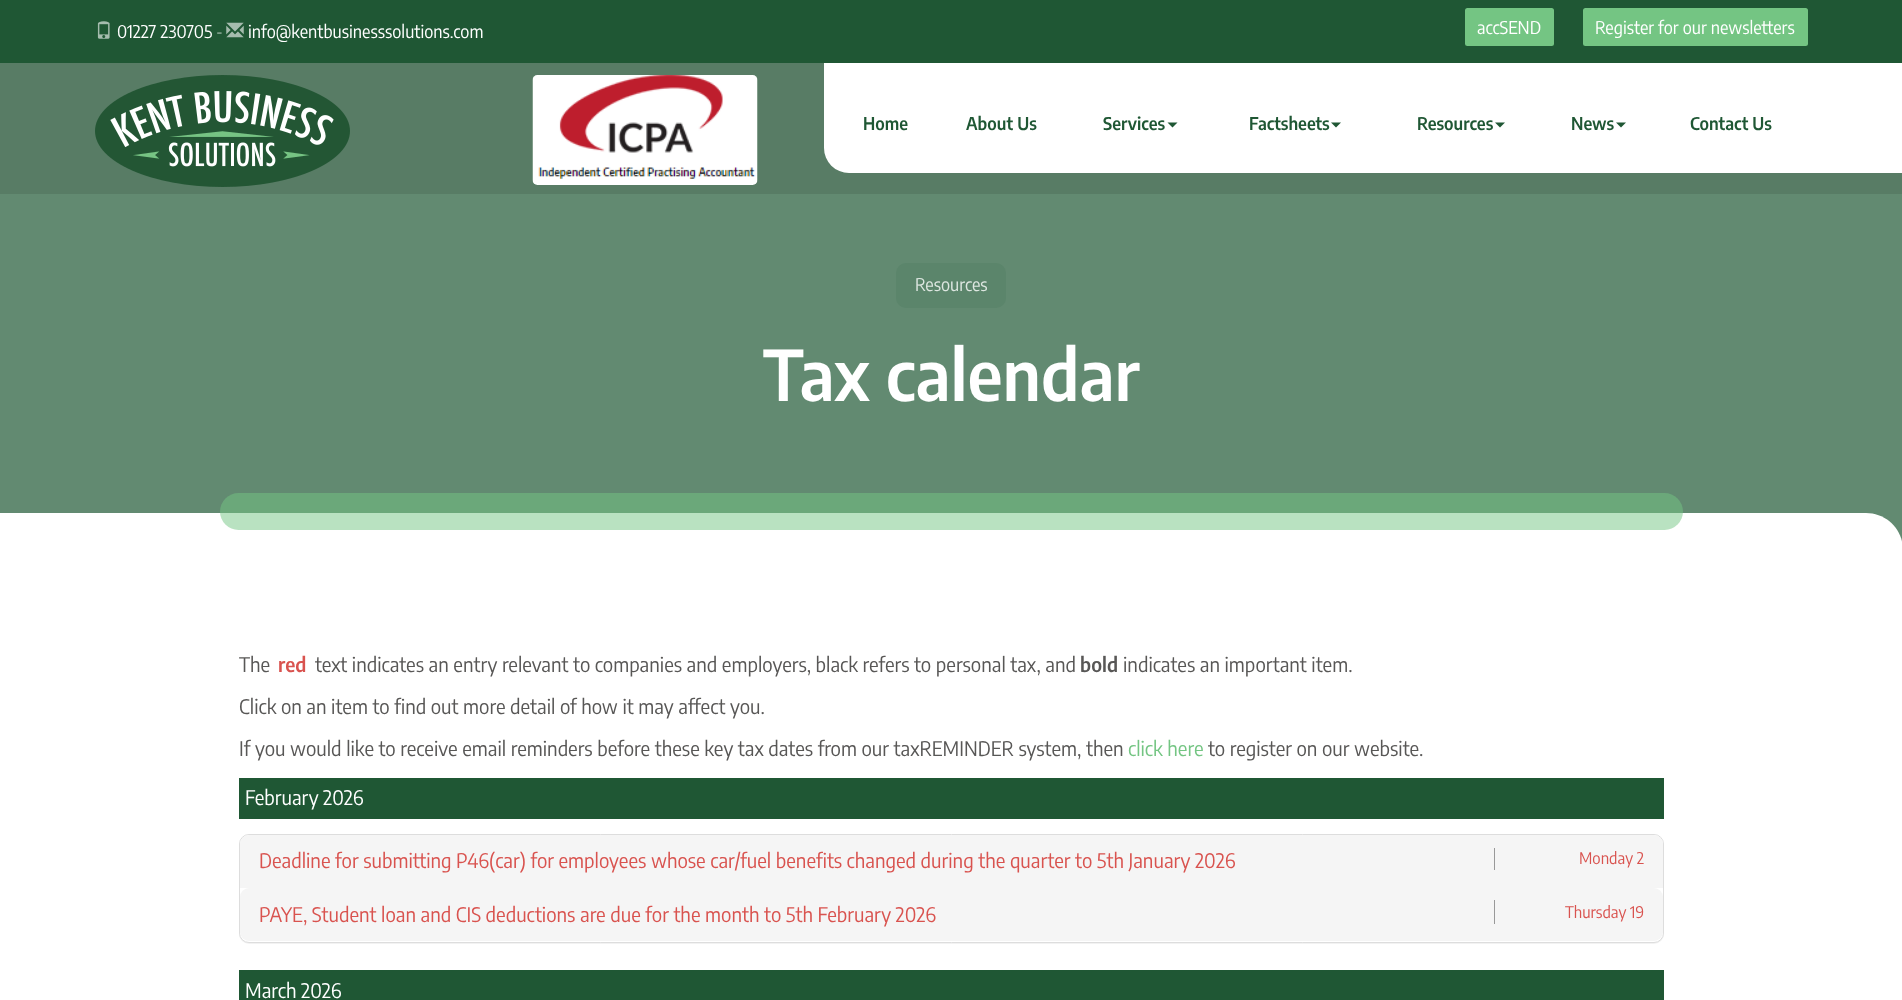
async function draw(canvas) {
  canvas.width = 1902;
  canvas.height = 1000;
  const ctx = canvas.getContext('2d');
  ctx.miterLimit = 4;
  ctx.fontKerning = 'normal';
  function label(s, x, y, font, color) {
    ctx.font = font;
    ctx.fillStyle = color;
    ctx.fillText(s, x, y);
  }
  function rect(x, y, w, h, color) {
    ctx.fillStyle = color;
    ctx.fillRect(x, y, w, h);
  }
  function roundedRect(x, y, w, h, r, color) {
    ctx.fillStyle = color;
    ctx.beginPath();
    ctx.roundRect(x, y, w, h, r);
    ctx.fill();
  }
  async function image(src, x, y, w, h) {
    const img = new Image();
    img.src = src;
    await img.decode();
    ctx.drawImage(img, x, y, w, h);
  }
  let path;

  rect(0, 0, 1902, 1000, '#fff');
  rect(0, 63, 1902, 131, '#587c65');
  rect(0, 0, 1902, 63, '#1f5734');
  await image('assets/img1.png', 97, 21, 13, 18);
  label('01227 230705', 117, 38, '17.5px Encode Sans Semi Condensed', '#fff');
  label('-', 216, 38, '17.5px Encode Sans Semi Condensed', '#a5bcae');
  await image('assets/img2.png', 226, 22, 18, 16);
  label('info@kentbusinesssolutions.com', 248, 38, '17.5px Encode Sans Semi Condensed', '#fff');
  roundedRect(1465, 8, 89, 38, 2.5, '#74c583');
  label('accSEND', 1477, 34, '17.5px Encode Sans Semi Condensed', '#fff');
  roundedRect(1583, 8, 225, 38, 2.5, '#74c583');
  label('Register for our newsletters', 1595, 34, '17.5px Encode Sans Semi Condensed', '#fff');
  await image('assets/img3.png', 95, 75, 255, 112);
  await image('assets/img4.png', 532, 75, 226, 110);
  ctx.beginPath();
  ctx.roundRect(824, 63, 984, 110, [0, 0, 0, 25]);
  ctx.fill();
  label('Home', 863, 130, '600 17.5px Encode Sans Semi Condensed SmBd', '#1f5734');
  label('About Us', 966, 130, '600 17.5px Encode Sans Semi Condensed SmBd', '#1f5734');
  label('Services', 1103, 130, '600 17.5px Encode Sans Semi Condensed SmBd', '#1f5734');
  path = new Path2D('M1167.5 122.5H1177.5L1172.5 127.5Z');
  ctx.fill(path);
  label('Factsheets', 1249, 130, '600 17.5px Encode Sans Semi Condensed SmBd', '#1f5734');
  path = new Path2D('M1331 122.5H1341L1336 127.5Z');
  ctx.fill(path);
  label('Resources', 1417, 130, '600 17.5px Encode Sans Semi Condensed SmBd', '#1f5734');
  path = new Path2D('M1495 122.5H1505L1500 127.5Z');
  ctx.fill(path);
  label('News', 1571, 130, '600 17.5px Encode Sans Semi Condensed SmBd', '#1f5734');
  path = new Path2D('M1616 122.5H1626L1621 127.5Z');
  ctx.fill(path);
  label('Contact Us', 1690, 130, '600 17.5px Encode Sans Semi Condensed SmBd', '#1f5734');
  rect(1808, 63, 94, 110, '#fff');
  rect(0, 194, 1902, 348, '#628a71');
  roundedRect(896, 263, 110, 45, 10, '#5b856b');
  label('Resources', 915, 291, '17.5px Encode Sans Semi Condensed', '#dee7e1');
  label('Tax calendar', 763, 401, '600 69.5px Encode Sans Semi Condensed SmBd', '#fff');
  path = new Path2D('M0 513H1866C1886.5 513 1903 529.5 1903 550H0Z');
  ctx.fill(path);
  roundedRect(220, 493, 1463, 37, 18.5, '#74c58380');
  label('The', 239, 672, '20px Encode Sans Semi Condensed', '#585756');
  label('red', 278, 672, '600 20px Encode Sans Semi Condensed SmBd', '#d9534f');
  label('text indicates an entry relevant to companies and employers, black refers to personal tax, and', 315, 672, '20px Encode Sans Semi Condensed', '#585756');
  label('bold', 1080, 672, '600 20px Encode Sans Semi Condensed SmBd', '#585756');
  label('indicates an important item.', 1123, 672, '20px Encode Sans Semi Condensed', '#585756');
  label('Click on an item to find out more detail of how it may affect you.', 239, 714, '20px Encode Sans Semi Condensed', '#585756');
  label('If you would like to receive email reminders before these key tax dates from our taxREMINDER system, then', 239, 756, '20px Encode Sans Semi Condensed', '#585756');
  label('click here', 1128, 756, '20px Encode Sans Semi Condensed', '#74c583');
  label('to register on our website.', 1208, 756, '20px Encode Sans Semi Condensed', '#585756');
  rect(239, 778, 1425, 41, '#1f5734');
  label('February 2026', 245, 805, '20px Encode Sans Semi Condensed', '#fff');
  ctx.fillStyle = '#0000000d';
  ctx.filter = 'blur(0.5px)';
  ctx.beginPath();
  ctx.roundRect(239, 835, 1425, 109, 10);
  ctx.fill();
  ctx.filter = 'none';
  ctx.fillStyle = '#fff';
  ctx.beginPath();
  ctx.roundRect(239.5, 834.5, 1424, 108, 9.5);
  ctx.fill();
  ctx.strokeStyle = '#ddd';
  ctx.stroke();
  ctx.fillStyle = '#f5f5f5';
  ctx.beginPath();
  ctx.roundRect(240, 835, 1423, 53, [9, 9, 0, 0]);
  ctx.fill();
  label('Deadline for submitting P46(car) for employees whose car/fuel benefits changed during the quarter to 5th January 2026', 259, 868, '20px Encode Sans Semi Condensed', '#d9534f');
  rect(1494, 848, 1, 22, '#999');
  label('Monday 2', 1579, 864, '16px Encode Sans Semi Condensed', '#d9534f');
  roundedRect(240, 888, 1423, 53, 9, '#f5f5f5');
  label('PAYE, Student loan and CIS deductions are due for the month to 5th February 2026', 259, 922, '20px Encode Sans Semi Condensed', '#d9534f');
  rect(1494, 900, 1, 24, '#999');
  label('Thursday 19', 1565, 918, '16px Encode Sans Semi Condensed', '#d9534f');
  rect(239, 970, 1425, 30, '#1f5734');
  label('March 2026', 245, 998, '20px Encode Sans Semi Condensed', '#fff');
}

draw(document.querySelector('canvas'));
